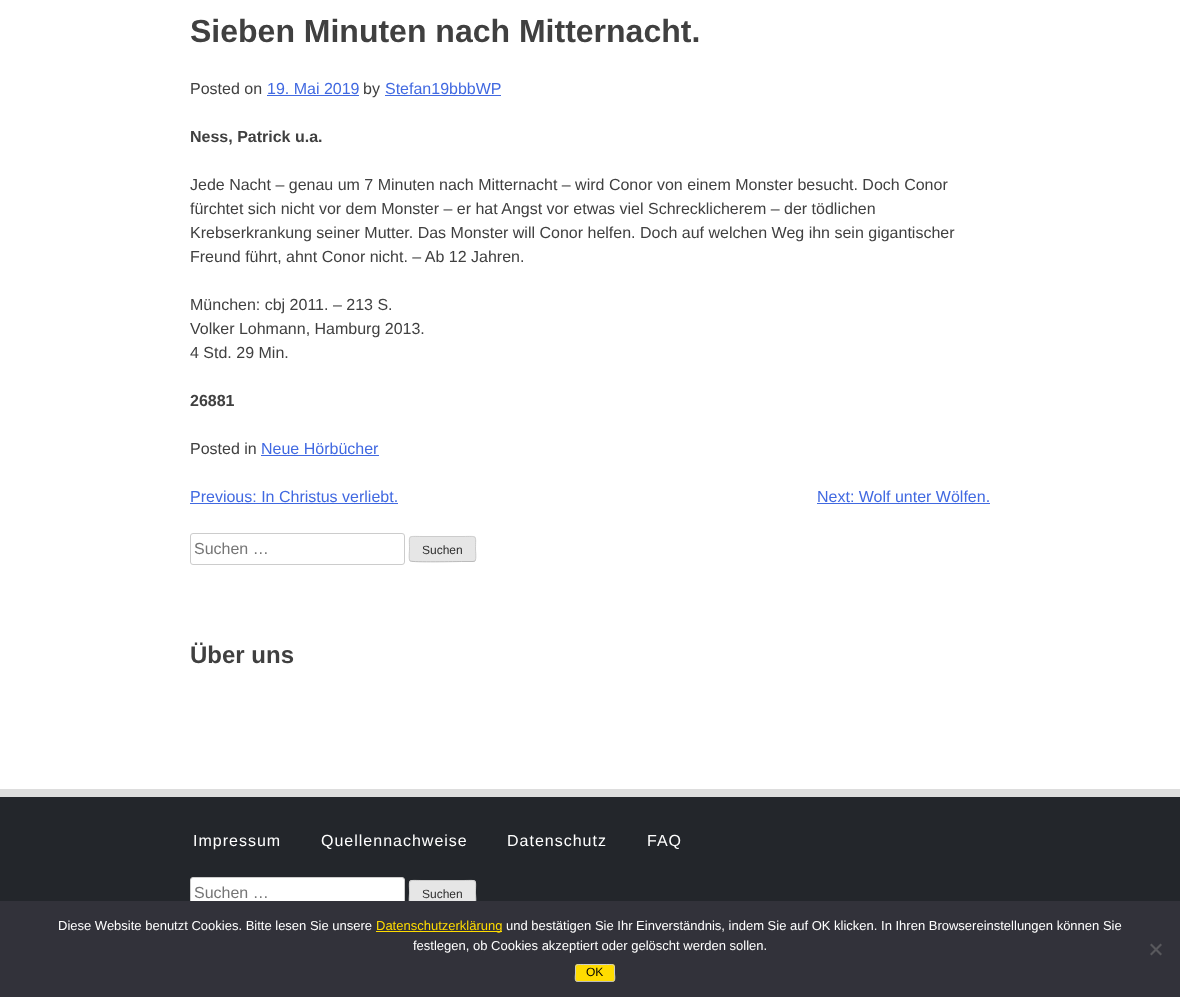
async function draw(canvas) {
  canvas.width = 1180;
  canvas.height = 997;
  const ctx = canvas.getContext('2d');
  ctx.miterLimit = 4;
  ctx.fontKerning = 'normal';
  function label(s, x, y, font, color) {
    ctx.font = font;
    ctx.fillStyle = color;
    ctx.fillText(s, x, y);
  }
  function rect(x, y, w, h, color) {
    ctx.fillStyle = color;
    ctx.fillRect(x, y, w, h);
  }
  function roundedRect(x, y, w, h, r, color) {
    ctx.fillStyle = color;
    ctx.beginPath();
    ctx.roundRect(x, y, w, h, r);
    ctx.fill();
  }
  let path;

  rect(0, 0, 1180, 997, '#fff');
  label('Sieben Minuten nach Mitternacht.', 190, 42, 'bold 32px Liberation Sans', '#404040');
  label('Posted on', 190, 94, '16px Liberation Sans', '#404040');
  label('19. Mai 2019', 267, 94, '16px Liberation Sans', '#4169e1');
  rect(267, 95, 92, 1, '#4169e1');
  label('by', 363, 94, '16px Liberation Sans', '#404040');
  label('Stefan19bbbWP', 385, 94, '16px Liberation Sans', '#4169e1');
  rect(385, 95, 116, 1, '#4169e1');
  label('Ness, Patrick u.a.', 190, 142, 'bold 16px Liberation Sans', '#404040');
  label('Jede Nacht – genau um 7 Minuten nach Mitternacht – wird Conor von einem Monster besucht. Doch Conor', 190, 190, '16px Liberation Sans', '#404040');
  label('fürchtet sich nicht vor dem Monster – er hat Angst vor etwas viel Schrecklicherem – der tödlichen', 190, 214, '16px Liberation Sans', '#404040');
  label('Krebserkrankung seiner Mutter. Das Monster will Conor helfen. Doch auf welchen Weg ihn sein gigantischer', 190, 238, '16px Liberation Sans', '#404040');
  label('Freund führt, ahnt Conor nicht. – Ab 12 Jahren.', 190, 262, '16px Liberation Sans', '#404040');
  label('München: cbj 2011. – 213 S.', 190, 310, '16px Liberation Sans', '#404040');
  label('Volker Lohmann, Hamburg 2013.', 190, 334, '16px Liberation Sans', '#404040');
  label('4 Std. 29 Min.', 190, 358, '16px Liberation Sans', '#404040');
  label('26881', 190, 406, 'bold 16px Liberation Sans', '#404040');
  label('Posted in', 190, 454, '16px Liberation Sans', '#404040');
  label('Neue Hörbücher', 261, 454, '16px Liberation Sans', '#4169e1');
  rect(261, 455, 118, 1, '#4169e1');
  label('Previous: In Christus verliebt.', 190, 502, '16px Liberation Sans', '#4169e1');
  rect(190, 503, 208, 1, '#4169e1');
  label('Next: Wolf unter Wölfen.', 817, 502, '16px Liberation Sans', '#4169e1');
  rect(817, 503, 173, 1, '#4169e1');
  ctx.beginPath();
  ctx.roundRect(190.5, 533.5, 214, 31, 2.5);
  ctx.strokeStyle = '#ccc';
  ctx.stroke();
  label('Suchen …', 194, 554, '16px Liberation Sans', '#757575');
  roundedRect(409, 536, 67, 26, 3, '#e6e6e6');
  path = new Path2D('M475 561L473 561.5H463C457 561.5 412.5 562.5 410.5 561H410');
  ctx.strokeStyle = '#bbb';
  ctx.stroke(path);
  path = new Path2D('M410 561C408.5 559 409.5 551.5 409.5 549C409.5 534.5 407 536.5 422 536.5H463C478 536.5 475.5 534.5 475.5 549C475.5 551.5 476.5 559 475 561');
  ctx.strokeStyle = '#ccc';
  ctx.stroke(path);
  label('Suchen', 422, 554, '12px Liberation Sans', '#2e2e2e');
  label('Über uns', 190, 663, 'bold 24px Liberation Sans', '#404040');
  rect(0, 797, 1180, 104, '#23262b');
  rect(0, 789, 1180, 8, '#ddd');
  ctx.letterSpacing = '1px';
  label('Impressum', 193, 846, '16px Liberation Sans', '#fff');
  label('Quellennachweise', 321, 846, '16px Liberation Sans', '#fff');
  label('Datenschutz', 507, 846, '16px Liberation Sans', '#fff');
  label('FAQ', 647, 846, '16px Liberation Sans', '#fff');
  ctx.beginPath();
  ctx.roundRect(190.5, 877.5, 214, 31, 2.5);
  ctx.fill();
  ctx.stroke();
  ctx.letterSpacing = '0px';
  label('Suchen …', 194, 898, '16px Liberation Sans', '#757575');
  roundedRect(409, 880, 67, 26, 3, '#e6e6e6');
  path = new Path2D('M410 905C408.5 903 409.5 895.5 409.5 893C409.5 878.5 407 880.5 422 880.5H463C478 880.5 475.5 878.5 475.5 893C475.5 895.5 476.5 903 475 905');
  ctx.stroke(path);
  label('Suchen', 422, 898, '12px Liberation Sans', '#2e2e2e');
  rect(0, 901, 1180, 96, '#32323a');
  label('Diese Website benutzt Cookies. Bitte lesen Sie unsere', 58, 930, '13px Liberation Sans', '#fff');
  rect(376, 931, 126, 1, '#ffdc00');
  label('Datenschutzerklärung', 376, 930, '13px Liberation Sans', '#ffdc00');
  label('und bestätigen Sie Ihr Einverständnis, indem Sie auf OK klicken. In Ihren Browsereinstellungen können Sie', 506, 930, '13px Liberation Sans', '#fff');
  label('festlegen, ob Cookies akzeptiert oder gelöscht werden sollen.', 413, 950, '13px Liberation Sans', '#fff');
  ctx.fillStyle = '#59595d';
  path = new Path2D('M1160.5 943.5L1162 945L1151.5 955.5L1150 954Z');
  ctx.fill(path);
  path = new Path2D('M1150 945L1151.5 943.5L1162 954L1160.5 955.5Z');
  ctx.fill(path);
  roundedRect(575, 964, 40, 18, 3, '#ffdc00');
  path = new Path2D('M614 981L612 981.5H578L576 981');
  ctx.strokeStyle = '#bbb';
  ctx.stroke(path);
  path = new Path2D('M576 981C574.5 979.5 575.5 975 575.5 973C575.5 964 574.5 964.5 583.5 964.5H606.5C615.5 964.5 614.5 964 614.5 973C614.5 975 615.5 979.5 614 981');
  ctx.strokeStyle = '#ccc';
  ctx.stroke(path);
  label('OK', 586, 976, '12px Liberation Sans', '#000');
}

draw(document.querySelector('canvas'));
